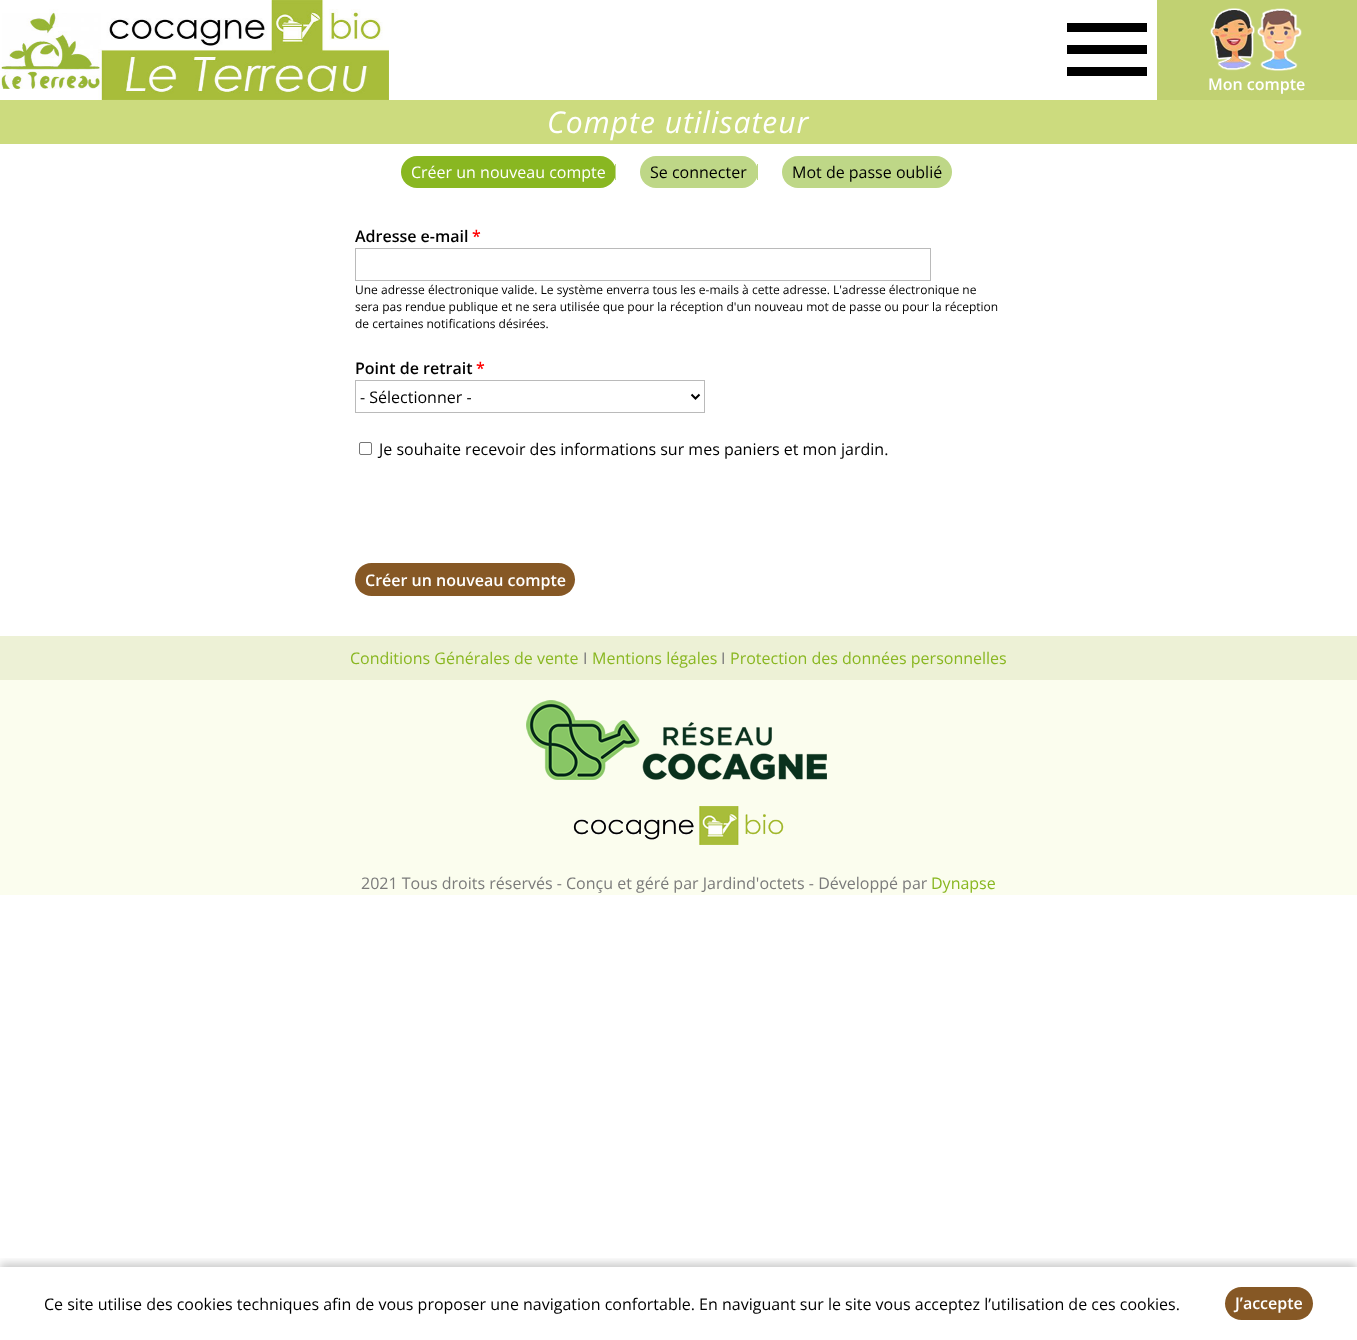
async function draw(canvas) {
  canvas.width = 1357;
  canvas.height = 1340;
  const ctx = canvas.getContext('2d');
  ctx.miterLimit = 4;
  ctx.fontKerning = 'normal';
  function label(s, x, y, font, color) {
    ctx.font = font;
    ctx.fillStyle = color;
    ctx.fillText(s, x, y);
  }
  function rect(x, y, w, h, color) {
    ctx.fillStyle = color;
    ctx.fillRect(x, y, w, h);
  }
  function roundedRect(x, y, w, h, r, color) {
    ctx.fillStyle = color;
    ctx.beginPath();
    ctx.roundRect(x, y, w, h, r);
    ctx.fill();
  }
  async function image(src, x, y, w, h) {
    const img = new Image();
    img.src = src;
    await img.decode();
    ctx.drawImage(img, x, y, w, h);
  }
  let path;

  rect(0, 0, 1357, 1340, '#fff');
  await image('assets/img1.png', 0, 0, 389, 100);
  ctx.fillStyle = '#000';
  path = new Path2D('M1067 76H1147V67H1067ZM1067 54H1147V45H1067ZM1067 23V32H1147V23Z');
  ctx.fill(path, 'evenodd');
  rect(1157, 0, 200, 100, '#c1d172');
  await image('assets/img2.png', 1210, 8, 92, 63);
  label('Mon compte', 1208, 90, '600 16px Open Sans', '#fff');
  rect(0, 100, 1357, 44, '#ccdb7e');
  ctx.letterSpacing = '1px';
  label('Compte utilisateur', 547, 133, 'italic 30px Open Sans', '#fff');
  roundedRect(401, 156, 215, 32, 16, '#89b721');
  rect(615, 164, 1, 16, '#bed787');
  ctx.letterSpacing = '0px';
  label('Créer un nouveau compte', 411, 178, '16px Open Sans', '#fff');
  roundedRect(640, 156, 118, 32, 16, '#bed787');
  rect(757, 164, 1, 16, '#bed787');
  label('Se connecter', 650, 178, '16px Open Sans', '#000');
  roundedRect(782, 156, 170, 32, 16, '#bed787');
  label('Mot de passe oublié', 792, 178, '16px Open Sans', '#000');
  label('Adresse e-mail', 355, 242, '600 16px Open Sans', '#000');
  label('*', 472, 242, '600 16px Open Sans', '#f00');
  ctx.strokeStyle = '#bababa';
  ctx.strokeRect(355.5, 248.5, 575, 32);
  label('Une adresse électronique valide. Le système enverra tous les e-mails à cette adresse. L\'adresse électronique ne', 355, 294, '12px Open Sans', '#000');
  label('sera pas rendue publique et ne sera utilisée que pour la réception d\'un nouveau mot de passe ou pour la réception', 355, 311, '12px Open Sans', '#000');
  label('de certaines notifications désirées.', 355, 328, '12px Open Sans', '#000');
  label('Point de retrait', 355, 374, '600 16px Open Sans', '#000');
  label('*', 476, 374, '600 16px Open Sans', '#f00');
  ctx.strokeRect(355.5, 380.5, 349, 32);
  path = new Path2D('M691.5 394.5L695.5 398.5L699.5 394.5');
  ctx.strokeStyle = '#000';
  ctx.lineWidth = 2;
  ctx.stroke(path);
  label('- Sélectionner -', 360, 403, '16px Open Sans', '#000');
  ctx.beginPath();
  ctx.roundRect(359.5, 442.5, 12, 12, 1.5);
  ctx.strokeStyle = '#767676';
  ctx.lineWidth = 1;
  ctx.stroke();
  label('Je souhaite recevoir des informations sur mes paniers et mon jardin.', 379, 455, '16px Open Sans', '#000');
  roundedRect(355, 563, 220, 33, 16.5, '#865825');
  label('Créer un nouveau compte', 365, 586, '600 16px Open Sans', '#fff');
  rect(0, 680, 1357, 215, '#fbfdee');
  rect(0, 636, 1357, 44, '#edf1d6');
  label('Conditions Générales de vente', 350, 664, '16px Open Sans', '#89b721');
  label('I', 583, 664, '16px Open Sans', '#7b7b7b');
  label('Mentions légales', 592, 664, '16px Open Sans', '#89b721');
  label('I', 721, 664, '16px Open Sans', '#7b7b7b');
  label('Protection des données personnelles', 730, 664, '16px Open Sans', '#89b721');
  await image('assets/img3.png', 526, 700, 301, 80);
  await image('assets/img4.png', 573, 806, 211, 39);
  label('2021 Tous droits réservés - Conçu et géré par Jardind\'octets - Développé par', 361, 889, '16px Open Sans', '#7b7b7b');
  label('Dynapse', 931, 889, '16px Open Sans', '#89b721');
  ctx.save();
  ctx.beginPath();
  ctx.rect(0, 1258, 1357, 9);
  ctx.clip();
  ctx.fillStyle = '#00000033';
  ctx.filter = 'blur(4px)';
  ctx.beginPath();
  ctx.rect(0, 1263, 1357, 73);
  ctx.fill();
  ctx.filter = 'none';
  ctx.restore();
  label('Ce site utilise des cookies techniques afin de vous proposer une navigation confortable. En naviguant sur le site vous acceptez l’utilisation de ces cookies.', 44, 1310, '16px Open Sans', '#000');
  roundedRect(1225, 1287, 88, 33, 16.5, '#865825');
  label('J’accepte', 1235, 1309, '600 16px Open Sans', '#fff');
}

draw(document.querySelector('canvas'));
